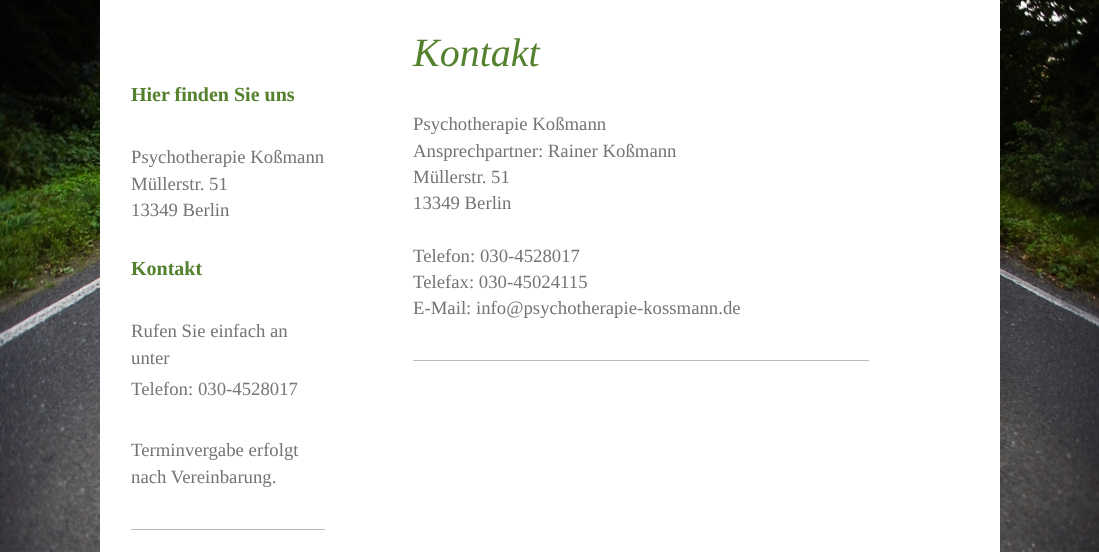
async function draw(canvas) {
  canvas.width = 1099;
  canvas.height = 552;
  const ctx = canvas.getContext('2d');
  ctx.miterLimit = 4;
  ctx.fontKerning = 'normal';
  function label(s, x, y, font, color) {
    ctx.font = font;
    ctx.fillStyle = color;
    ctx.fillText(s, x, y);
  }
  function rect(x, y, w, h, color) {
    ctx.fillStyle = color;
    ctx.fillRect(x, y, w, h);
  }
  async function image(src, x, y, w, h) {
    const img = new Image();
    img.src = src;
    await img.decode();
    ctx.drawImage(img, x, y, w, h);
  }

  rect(0, 0, 1099, 552, '#fff');
  await image('assets/img1.png', 0, 0, 1099, 552);
  ctx.fillStyle = '#00000026';
  ctx.filter = 'blur(75px)';
  ctx.beginPath();
  ctx.rect(113, -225, 125, 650);
  ctx.fill();
  ctx.filter = 'none';
  ctx.fillStyle = '#00000014';
  ctx.filter = 'blur(6px)';
  ctx.beginPath();
  ctx.rect(888, -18, 125, 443);
  ctx.fill();
  ctx.filter = 'none';
  rect(100, 0, 900, 552, '#fff');
  label('Hier finden Sie uns', 131, 101, 'bold 20px Liberation Serif', '#54812d');
  label('Psychotherapie Koßmann', 131, 163, '18.75px Liberation Serif', '#757575');
  label('Müllerstr. 51', 131, 190, '18.75px Liberation Serif', '#757575');
  label('13349 Berlin', 131, 216, '18.75px Liberation Serif', '#757575');
  label('Kontakt', 131, 275, 'bold 20px Liberation Serif', '#54812d');
  label('Rufen Sie einfach an', 131, 337, '18.75px Liberation Serif', '#757575');
  label('unter', 131, 364, '18.75px Liberation Serif', '#757575');
  label('Telefon: 030-4528017', 131, 395, '18.75px Liberation Serif', '#757575');
  label('Terminvergabe erfolgt', 131, 456, '18.75px Liberation Serif', '#757575');
  label('nach Vereinbarung.', 131, 483, '18.75px Liberation Serif', '#757575');
  rect(131, 529, 194, 1, '#bababa');
  label('Kontakt', 413, 66, 'italic 40px Liberation Serif', '#54812d');
  label('Psychotherapie Koßmann', 413, 130, '18.75px Liberation Serif', '#757575');
  label('Ansprechpartner: Rainer Koßmann', 413, 157, '18.75px Liberation Serif', '#757575');
  label('Müllerstr. 51', 413, 183, '18.75px Liberation Serif', '#757575');
  label('13349 Berlin', 413, 209, '18.75px Liberation Serif', '#757575');
  label('Telefon: 030-4528017', 413, 262, '18.75px Liberation Serif', '#757575');
  label('Telefax: 030-45024115', 413, 288, '18.75px Liberation Serif', '#757575');
  label('E-Mail: info@psychotherapie-kossmann.de', 413, 314, '18.75px Liberation Serif', '#757575');
  rect(413, 360, 456, 1, '#bababa');
}

draw(document.querySelector('canvas'));
